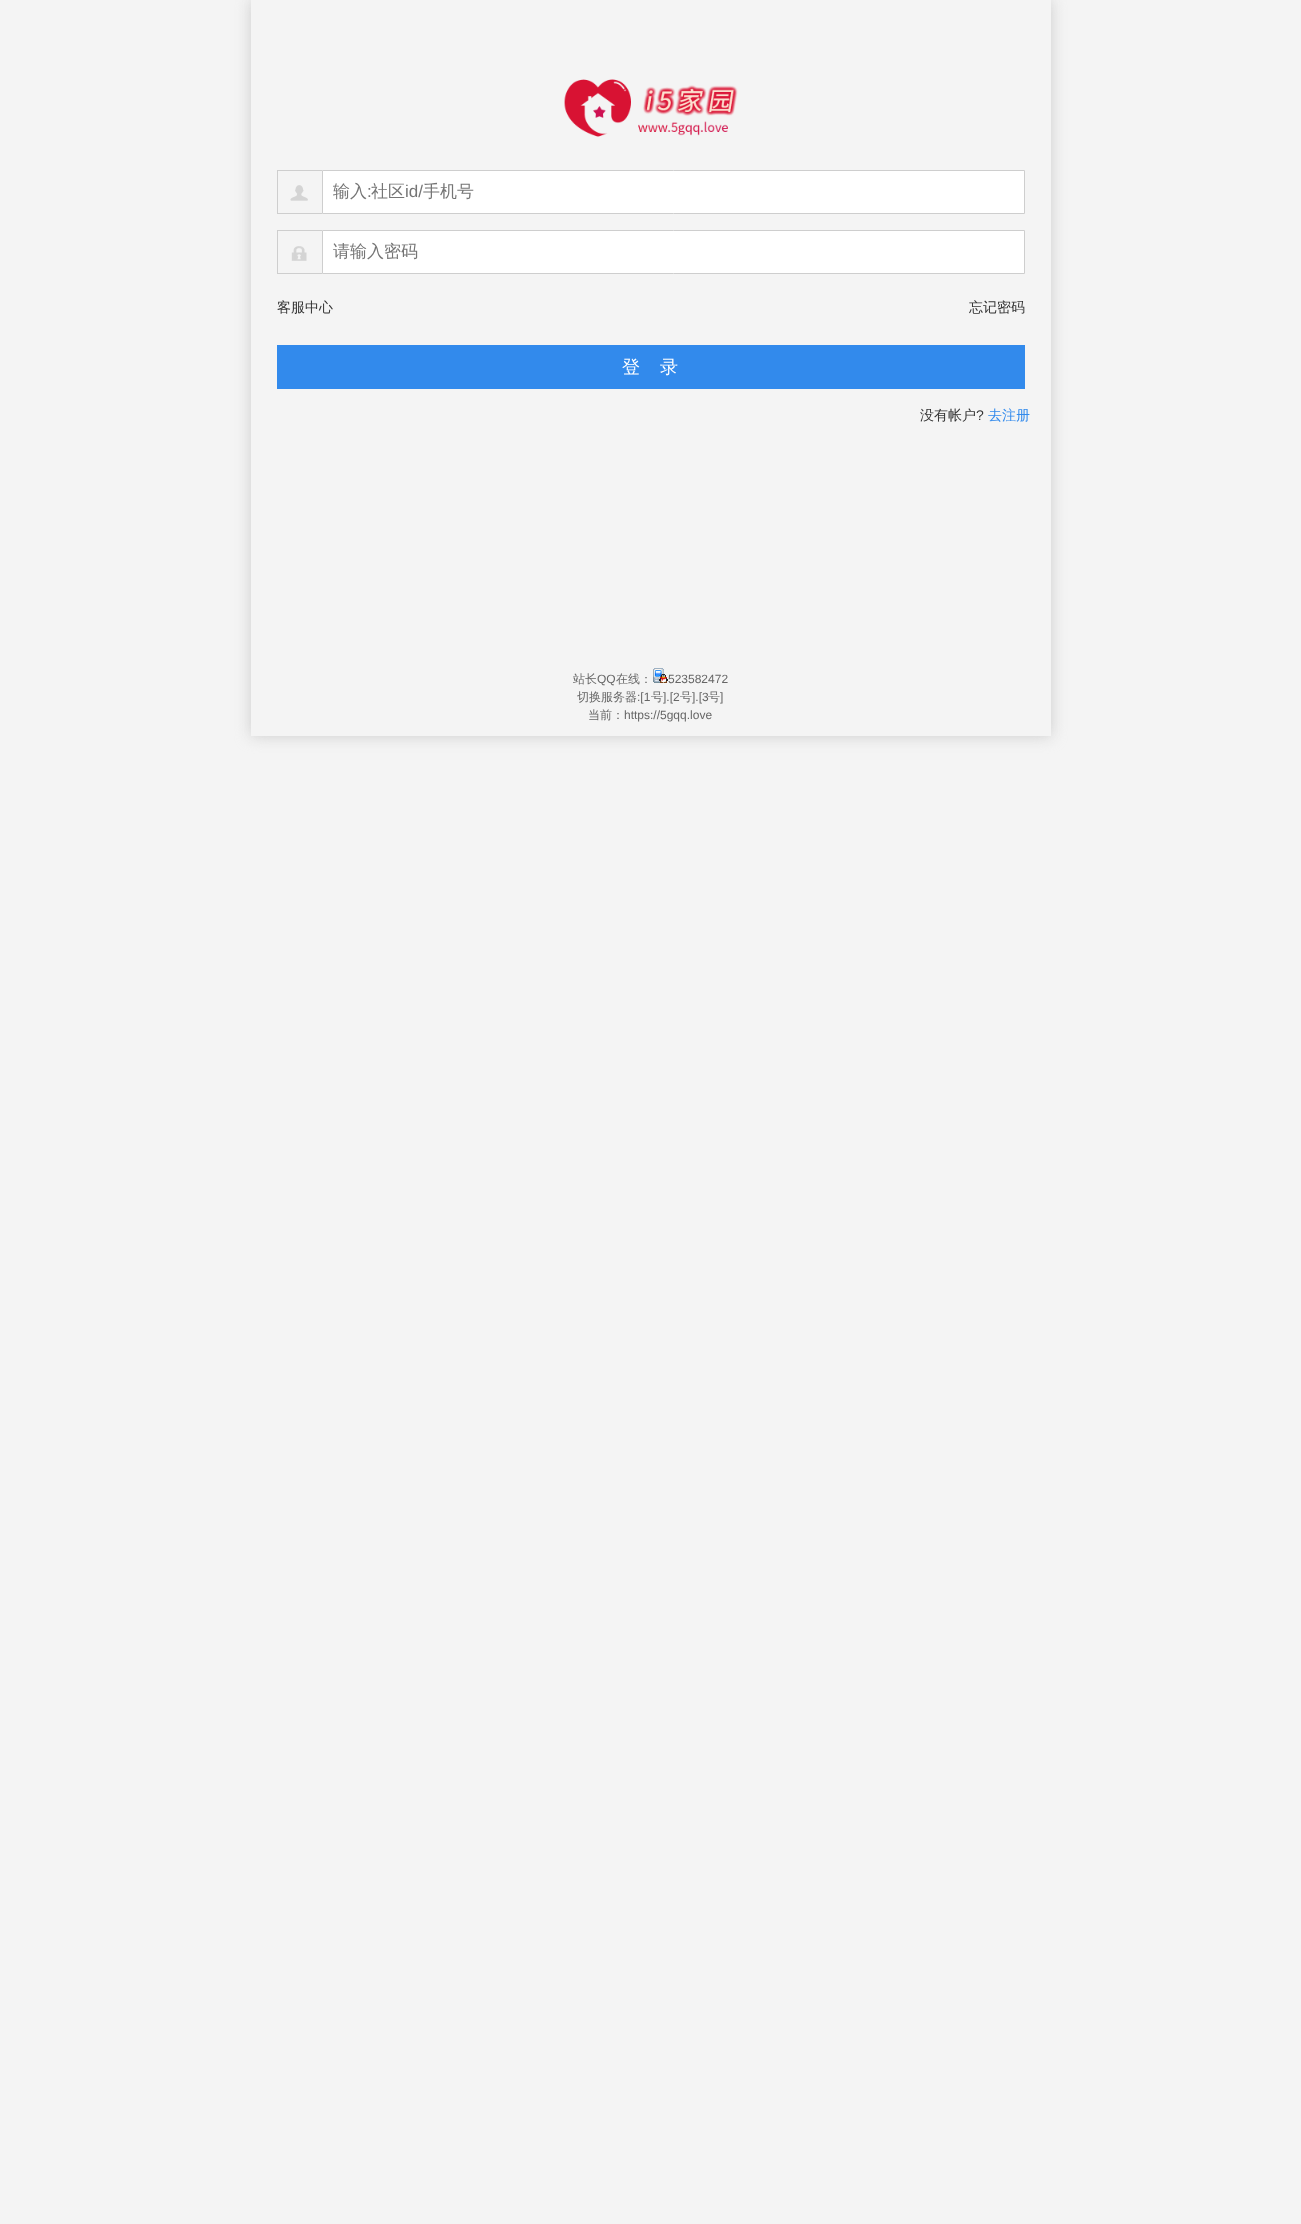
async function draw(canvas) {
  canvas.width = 1301;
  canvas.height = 2224;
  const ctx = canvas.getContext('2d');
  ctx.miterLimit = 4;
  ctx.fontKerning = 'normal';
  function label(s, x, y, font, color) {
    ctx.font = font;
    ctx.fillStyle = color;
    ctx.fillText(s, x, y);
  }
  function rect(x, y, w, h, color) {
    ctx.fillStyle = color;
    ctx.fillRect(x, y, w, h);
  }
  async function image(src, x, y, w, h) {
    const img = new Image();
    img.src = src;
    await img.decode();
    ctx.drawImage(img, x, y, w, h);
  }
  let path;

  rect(0, 0, 1301, 2224, '#f4f4f4');
  ctx.save();
  path = new Path2D('M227 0H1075V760H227ZM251 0H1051V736H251Z');
  ctx.clip(path, 'evenodd');
  ctx.fillStyle = '#ccc';
  ctx.filter = 'blur(7.5px)';
  ctx.beginPath();
  ctx.rect(251, 0, 800, 736);
  ctx.fill();
  ctx.filter = 'none';
  ctx.restore();
  await image('assets/img1.png', 564, 79, 174, 58);
  rect(277, 170, 45, 1, '#cecece');
  rect(277, 213, 45, 1, '#cecece');
  rect(277, 170, 1, 44, '#cecece');
  await image('assets/img2.png', 290, 185, 18, 16);
  ctx.fillStyle = '#fff';
  ctx.beginPath();
  ctx.rect(322.5, 170.5, 702, 43);
  ctx.fill();
  ctx.strokeStyle = '#cecece';
  ctx.stroke();
  ctx.save();
  ctx.beginPath();
  ctx.rect(333, 180, 681, 23);
  ctx.clip();
  label('输入', 333, 197, '500 17px WenQuanYi Zen Hei', '#757575');
  ctx.restore();
  label(':', 367, 197, '17px Liberation Sans', '#757575');
  label('社区', 371, 197, '500 17px WenQuanYi Zen Hei', '#757575');
  label('id/', 405, 197, '17px Liberation Sans', '#757575');
  label('手机号', 423, 197, '500 17px WenQuanYi Zen Hei', '#757575');
  rect(277, 230, 45, 1, '#cecece');
  rect(277, 273, 45, 1, '#cecece');
  rect(277, 230, 1, 44, '#cecece');
  await image('assets/img3.png', 291, 246, 16, 15);
  ctx.fillStyle = '#fff';
  ctx.beginPath();
  ctx.rect(322.5, 230.5, 702, 43);
  ctx.fill();
  ctx.stroke();
  label('请输入密码', 333, 257, '500 17px WenQuanYi Zen Hei', '#757575');
  label('客服中心', 277, 312, '500 14px WenQuanYi Zen Hei', '#333');
  label('忘记密码', 969, 312, '500 14px WenQuanYi Zen Hei', '#333');
  rect(277, 345, 748, 44, '#328aec');
  label('登', 622, 373, '500 18px WenQuanYi Zen Hei', '#fff');
  label('录', 660, 373, '500 18px WenQuanYi Zen Hei', '#fff');
  label('没有帐户', 920, 420, '500 14px WenQuanYi Zen Hei', '#333');
  label('?', 976, 420, '14px Liberation Sans', '#333');
  label('去注册', 988, 420, '500 14px WenQuanYi Zen Hei', '#328aec');
  label('站长', 573, 683, '500 12px WenQuanYi Zen Hei', '#666');
  label('QQ', 597, 683, '12px Liberation Sans', '#666');
  label('在线：', 616, 683, '500 12px WenQuanYi Zen Hei', '#666');
  await image('assets/img4.png', 653, 668, 15, 15);
  label('523582472', 668, 683, '12px Liberation Sans', '#666');
  label('切换服务器', 577, 701, '500 12px WenQuanYi Zen Hei', '#666');
  label(':[1', 637, 701, '12px Liberation Sans', '#666');
  label('号', 651, 701, '500 12px WenQuanYi Zen Hei', '#666');
  label('].[2', 663, 701, '12px Liberation Sans', '#666');
  label('号', 680, 701, '500 12px WenQuanYi Zen Hei', '#666');
  label('].[3', 692, 701, '12px Liberation Sans', '#666');
  label('号', 708, 701, '500 12px WenQuanYi Zen Hei', '#666');
  label(']', 720, 701, '12px Liberation Sans', '#666');
  label('当前：', 588, 719, '500 12px WenQuanYi Zen Hei', '#666');
  label('https://5gqq.love', 624, 719, '12px Liberation Sans', '#666');
}

draw(document.querySelector('canvas'));
